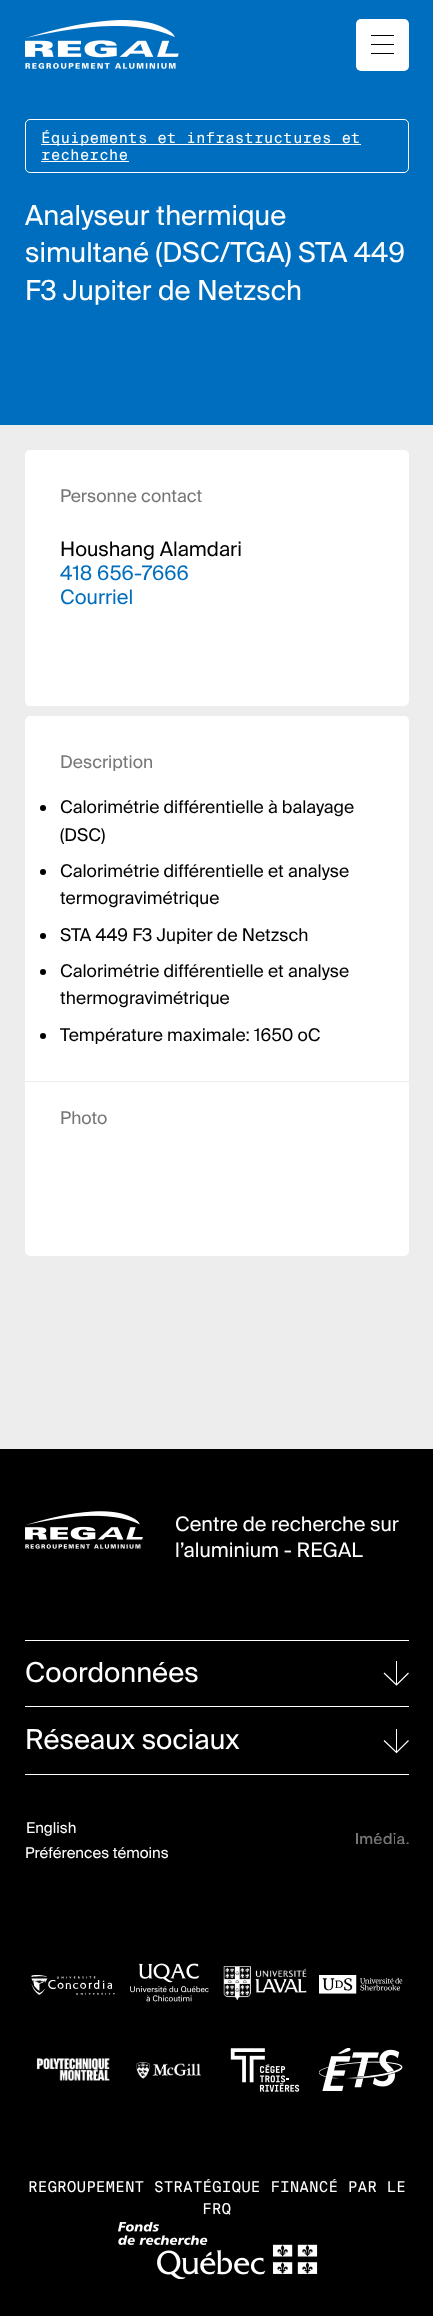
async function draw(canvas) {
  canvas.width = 433;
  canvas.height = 2316;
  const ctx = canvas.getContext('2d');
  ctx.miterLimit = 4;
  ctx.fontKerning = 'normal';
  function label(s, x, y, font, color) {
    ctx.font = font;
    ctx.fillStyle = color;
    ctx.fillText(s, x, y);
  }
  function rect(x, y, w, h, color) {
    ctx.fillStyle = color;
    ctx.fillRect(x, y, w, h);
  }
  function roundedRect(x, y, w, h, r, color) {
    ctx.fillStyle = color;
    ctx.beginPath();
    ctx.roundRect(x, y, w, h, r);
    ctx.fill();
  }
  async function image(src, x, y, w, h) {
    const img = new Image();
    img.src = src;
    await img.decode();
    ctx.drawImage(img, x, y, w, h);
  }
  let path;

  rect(0, 0, 433, 2316, '#ededed');
  rect(0, 0, 433, 425, '#006ebe');
  await image('assets/img1.png', 25, 20, 154, 49);
  roundedRect(356, 19, 53, 52, 5, '#fff');
  rect(371, 35, 23, 1, '#000');
  rect(371, 44, 23, 1, '#000');
  rect(371, 53, 23, 1, '#000');
  ctx.beginPath();
  ctx.roundRect(25.5, 119.5, 383, 53, 4.5);
  ctx.strokeStyle = '#fff';
  ctx.stroke();
  rect(41, 144, 320, 1, '#fff');
  label('Équipements et infrastructures et', 41, 143, '15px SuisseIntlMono', '#fff');
  label('recherche', 41, 160, '15px SuisseIntlMono', '#fff');
  rect(41, 161, 88, 1, '#fff');
  label('Analyseur thermique', 25, 225, '27.5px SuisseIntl', '#fff');
  label('simultané (DSC/TGA) STA 449', 25, 262, '27.5px SuisseIntl', '#fff');
  label('F3 Jupiter de Netzsch', 25, 300, '27.5px SuisseIntl', '#fff');
  roundedRect(25, 450, 384, 256, 5, '#fff');
  label('Personne contact', 60, 502, '17.5px SuisseIntl', '#767676');
  label('Houshang Alamdari', 60, 556, '20px SuisseIntl', '#000');
  label('418 656-7666', 60, 580, '20px SuisseIntl', '#006ebe');
  label('Courriel', 60, 604, '20px SuisseIntl', '#006ebe');
  roundedRect(25, 716, 384, 540, 5, '#fff');
  label('Description', 60, 768, '17.5px SuisseIntl', '#767676');
  ctx.fillStyle = '#000';
  ctx.beginPath();
  ctx.arc(43, 808, 3, 0, 2 * Math.PI);
  ctx.fill();
  label('Calorimétrie différentielle à balayage', 60, 813, '17.5px SuisseIntl', '#000');
  label('(DSC)', 60, 841, '17.5px SuisseIntl', '#000');
  ctx.beginPath();
  ctx.arc(43, 872, 3, 0, 2 * Math.PI);
  ctx.fill();
  label('Calorimétrie différentielle et analyse', 60, 877, '17.5px SuisseIntl', '#000');
  label('termogravimétrique', 60, 904, '17.5px SuisseIntl', '#000');
  ctx.beginPath();
  ctx.arc(43, 936, 3, 0, 2 * Math.PI);
  ctx.fill();
  label('STA 449 F3 Jupiter de Netzsch', 60, 941, '17.5px SuisseIntl', '#000');
  ctx.beginPath();
  ctx.arc(43, 972, 3, 0, 2 * Math.PI);
  ctx.fill();
  label('Calorimétrie différentielle et analyse', 60, 977, '17.5px SuisseIntl', '#000');
  label('thermogravimétrique', 60, 1004, '17.5px SuisseIntl', '#000');
  ctx.beginPath();
  ctx.arc(43, 1036, 3, 0, 2 * Math.PI);
  ctx.fill();
  label('Température maximale: 1650 oC', 60, 1041, '17.5px SuisseIntl', '#000');
  rect(25, 1081, 384, 1, '#ededed');
  label('Photo', 60, 1124, '17.5px SuisseIntl', '#767676');
  rect(0, 1449, 433, 867, '#000');
  await image('assets/img2.png', 25, 1511, 118, 38);
  label('Centre de recherche sur', 175, 1531, '20px SuisseIntl', '#fff');
  label('l’aluminium - REGAL', 175, 1557, '20px SuisseIntl', '#fff');
  rect(25, 1640, 384, 1, '#fff');
  rect(25, 1706, 384, 1, '#fff');
  label('Coordonnées', 25, 1682, '27.5px SuisseIntl', '#fff');
  rect(396, 1661, 1, 24, '#fff');
  path = new Path2D('M384 1673L396.5 1685L408.5 1673');
  ctx.lineWidth = 1.2;
  ctx.stroke(path);
  rect(25, 1774, 384, 1, '#fff');
  label('Réseaux sociaux', 25, 1749, '27.5px SuisseIntl', '#fff');
  rect(396, 1729, 1, 24, '#fff');
  path = new Path2D('M384 1740.5L396.5 1752.5L408.5 1740.5');
  ctx.stroke(path);
  label('English', 26, 1833, '15px SuisseIntl', '#fff');
  label('Préférences témoins', 25, 1858, '15px SuisseIntl', '#fff');
  await image('assets/img3.png', 356, 1833, 53, 11);
  await image('assets/img4.png', 31, 1975, 84, 20);
  await image('assets/img5.png', 130, 1963, 79, 39);
  await image('assets/img6.png', 223, 1966, 84, 34);
  await image('assets/img7.png', 319, 1975, 84, 19);
  await image('assets/img8.png', 36, 2058, 74, 23);
  await image('assets/img9.png', 136, 2061, 65, 18);
  await image('assets/img10.png', 230, 2048, 70, 44);
  await image('assets/img11.png', 319, 2048, 84, 43);
  label('REGROUPEMENT STRATÉGIQUE FINANCÉ PAR LE', 28, 2192, '15px SuisseIntlMono', '#fff');
  label('FRQ', 202, 2214, '15px SuisseIntlMono', '#fff');
  await image('assets/img12.png', 118, 2222, 200, 57);
}

draw(document.querySelector('canvas'));
